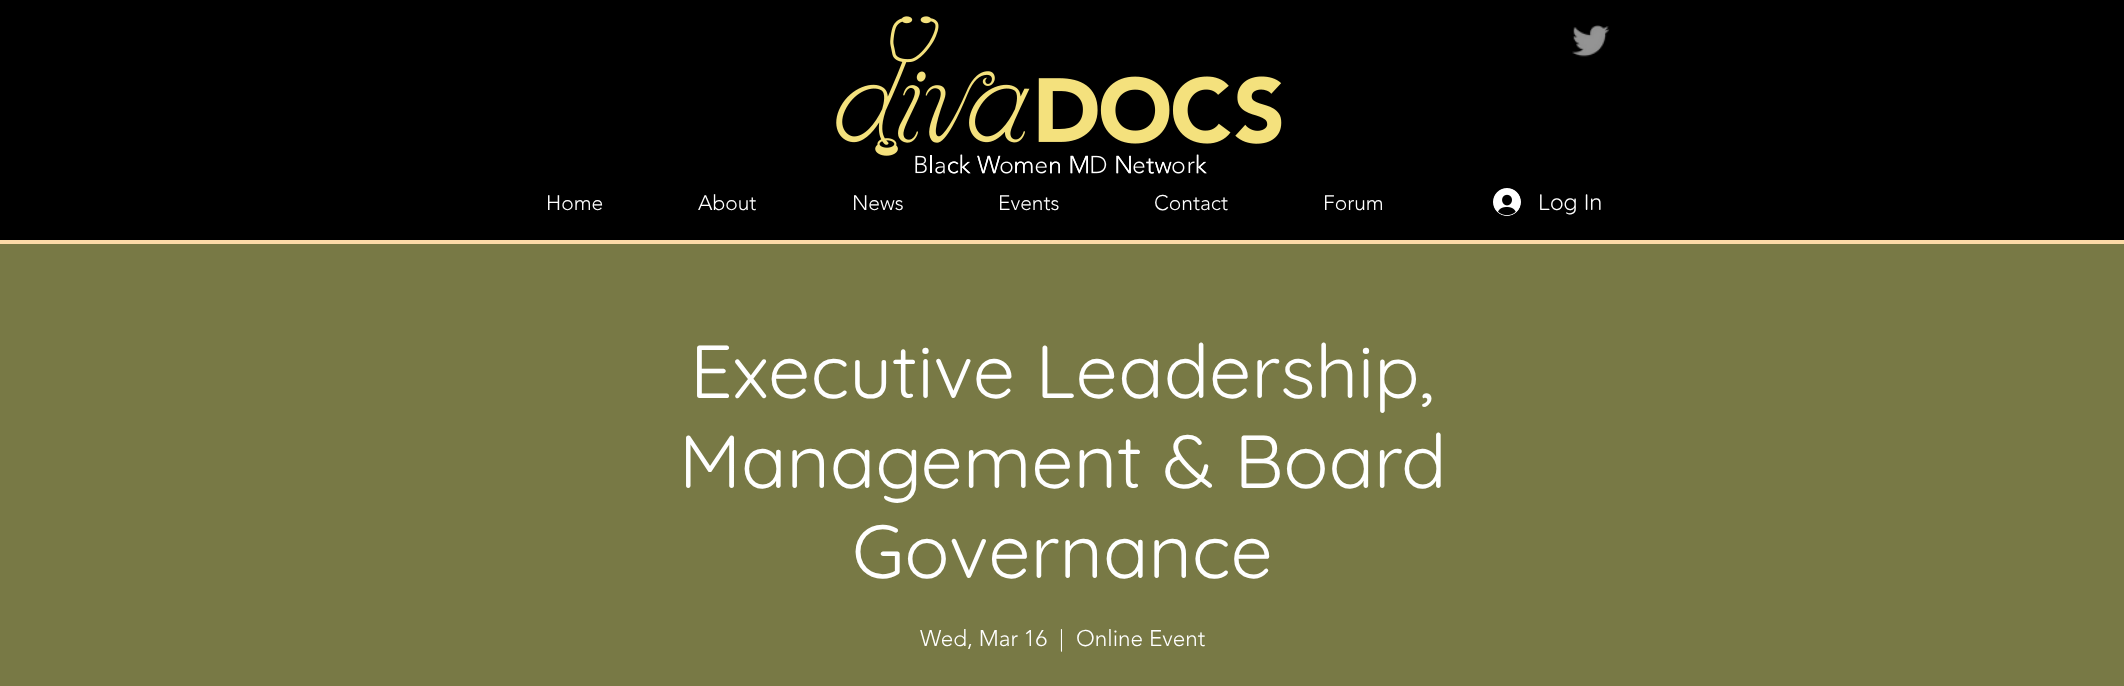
async function draw(canvas) {
  canvas.width = 2124;
  canvas.height = 686;
  const ctx = canvas.getContext('2d');
  ctx.miterLimit = 4;
  ctx.fontKerning = 'normal';
  function label(s, x, y, font, color) {
    ctx.font = font;
    ctx.fillStyle = color;
    ctx.fillText(s, x, y);
  }
  function rect(x, y, w, h, color) {
    ctx.fillStyle = color;
    ctx.fillRect(x, y, w, h);
  }
  async function image(src, x, y, w, h) {
    const img = new Image();
    img.src = src;
    await img.decode();
    ctx.drawImage(img, x, y, w, h);
  }

  rect(0, 0, 2124, 686, '#fcdaa7');
  rect(0, 0, 2124, 240, '#000');
  await image('assets/img1.png', 836, 16, 446, 158);
  await image('assets/img2.png', 1572, 25, 38, 32);
  label('Home', 546, 210, '300 21px "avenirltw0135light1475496"', '#fff');
  label('About', 698, 210, '300 21px "avenirltw0135light1475496"', '#fff');
  label('News', 852, 210, '300 21px "avenirltw0135light1475496"', '#fff');
  label('Events', 998, 210, '300 21px "avenirltw0135light1475496"', '#fff');
  label('Contact', 1154, 210, '300 21px "avenirltw0135light1475496"', '#fff');
  label('Forum', 1323, 210, '300 21px "avenirltw0135light1475496"', '#fff');
  await image('assets/img3.png', 1493, 188, 28, 28);
  label('Log In', 1538, 210, '22.5px Quicksand', '#fff');
  rect(0, 244, 2124, 442, '#787945');
  label('Executive Leadership,', 690, 398, '75px Quicksand', '#fff');
  label('Management & Board', 679, 488, '75px Quicksand', '#fff');
  label('Governance', 852, 578, '75px Quicksand', '#fff');
  label('Wed, Mar 16', 920, 646, '300 22.5px "avenirltw0135light1475496"', '#fff');
  label('|', 1059, 646, '300 22.5px "avenirltw0135light1475496"', '#fff');
  label('Online Event', 1076, 646, '300 22.5px "avenirltw0135light1475496"', '#fff');
}

draw(document.querySelector('canvas'));
